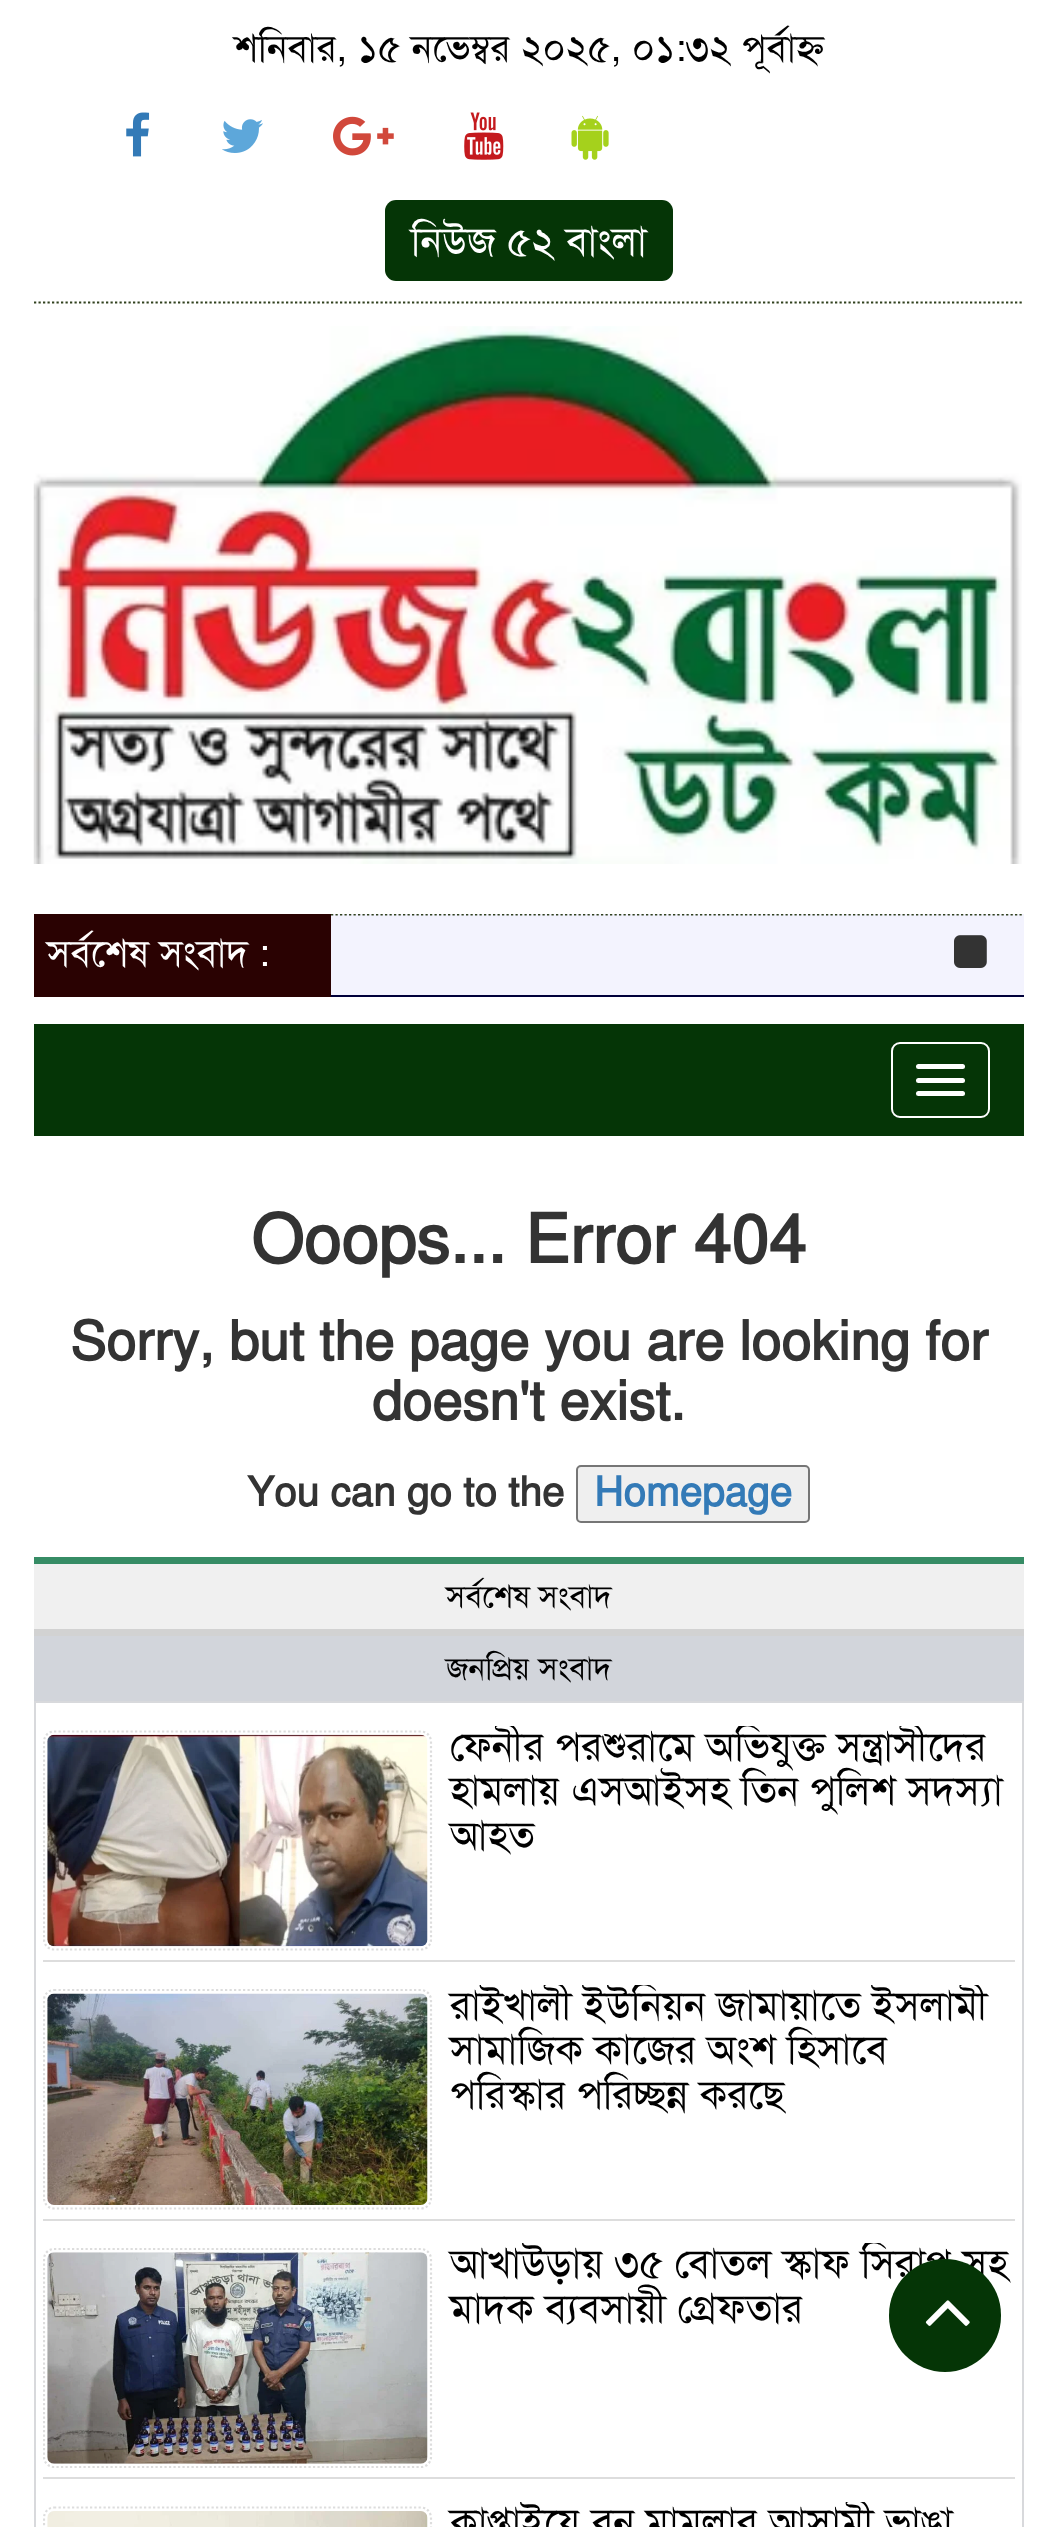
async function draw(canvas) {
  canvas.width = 1056;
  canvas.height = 2527;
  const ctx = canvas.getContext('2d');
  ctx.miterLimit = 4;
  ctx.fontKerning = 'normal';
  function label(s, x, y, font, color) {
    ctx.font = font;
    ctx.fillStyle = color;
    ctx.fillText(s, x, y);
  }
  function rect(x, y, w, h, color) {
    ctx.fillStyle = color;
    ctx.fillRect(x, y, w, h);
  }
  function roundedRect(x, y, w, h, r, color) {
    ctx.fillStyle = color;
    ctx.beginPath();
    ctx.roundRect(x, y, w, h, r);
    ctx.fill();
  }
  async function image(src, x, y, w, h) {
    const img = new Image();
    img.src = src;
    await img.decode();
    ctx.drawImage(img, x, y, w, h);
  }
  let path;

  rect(0, 0, 1056, 2527, '#fff');
  path = new Path2D('M34 302.5H1024');
  ctx.strokeStyle = '#30411e';
  ctx.lineWidth = 2.2;
  ctx.setLineDash([2.25, 2.25]);
  ctx.stroke(path);
  label('শনিবার, ১৫ নভেম্বর ২০২৫, ০১:৩২ পূর্বাহ্ন', 234, 61, '38.25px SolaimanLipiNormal', '#000');
  await image('assets/img1.png', 126, 112, 24, 45);
  await image('assets/img2.png', 222, 119, 41, 34);
  await image('assets/img3.png', 333, 116, 61, 40);
  await image('assets/img4.png', 464, 112, 40, 48);
  await image('assets/img5.png', 571, 115, 38, 45);
  roundedRect(385, 200, 288, 81, 11, '#053506');
  label('নিউজ ৫২ বাংলা', 411, 255, '40.5px SolaimanLipiNormal', '#fff');
  await image('assets/img6.png', 33, 326, 989, 538);
  rect(34, 914, 297, 83, '#2a0202');
  label('সর্বশেষ সংবাদ :', 47, 966, '38.25px SolaimanLipiNormal', '#fff');
  rect(331, 914, 693, 81, '#f3f3fe');
  ctx.save();
  ctx.beginPath();
  ctx.rect(0, 914, 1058, 83);
  ctx.clip();
  path = new Path2D('M331 914.5H1024');
  ctx.stroke(path);
  ctx.restore();
  rect(331, 995, 693, 2, '#00003a');
  await image('assets/img7.png', 954, 935, 33, 33);
  rect(34, 1024, 990, 112, '#053506');
  ctx.beginPath();
  ctx.roundRect(892, 1043, 97, 74, 8);
  ctx.strokeStyle = '#fff';
  ctx.lineWidth = 2;
  ctx.setLineDash([]);
  ctx.stroke();
  roundedRect(916, 1064, 49, 5, 2.5, '#fff');
  roundedRect(916, 1078, 49, 5, 2.5, '#fff');
  roundedRect(916, 1091, 49, 5, 2.5, '#fff');
  label('Ooops... Error 404', 251, 1263, 'bold 67.5px SolaimanLipiNormal', '#333');
  label('Sorry, but the page you are looking for', 70, 1360, 'bold 54px SolaimanLipiNormal', '#333');
  label('doesn\'t exist.', 372, 1420, 'bold 54px SolaimanLipiNormal', '#333');
  label('You can go to the', 247, 1506, 'bold 40.5px SolaimanLipiNormal', '#333');
  ctx.fillStyle = '#efefef';
  ctx.beginPath();
  ctx.roundRect(577, 1466, 232, 56, 4);
  ctx.fill();
  ctx.strokeStyle = '#767676';
  ctx.stroke();
  label('Homepage', 594, 1506, 'bold 40.5px SolaimanLipiNormal', '#337ab7');
  rect(34, 1636, 990, 65, '#d2d5db');
  rect(34, 1564, 990, 65, '#f0f0f0');
  rect(34, 1557, 990, 7, '#368c65');
  label('সর্বশেষ সংবাদ', 446, 1607, '31.5px SolaimanLipiNormal', '#000');
  rect(34, 1629, 990, 7, '#d2d2d2');
  label('জনপ্রিয় সংবাদ', 446, 1679, '31.5px SolaimanLipiNormal', '#000');
  ctx.strokeStyle = '#d8d9dc';
  ctx.strokeRect(35, 1702, 988, 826);
  rect(43, 1960, 972, 2, '#ddd');
  ctx.save();
  ctx.beginPath();
  ctx.rect(43, 1726, 972, 234);
  ctx.clip();
  path = new Path2D('M54 1731.5H421C426.5 1731.5 431 1736 431 1741.5V1939.5C431 1945 426.5 1949.5 421 1949.5H54C48.5 1949.5 44 1945 44 1939.5V1741.5C44 1736 48.5 1731.5 54 1731.5Z');
  ctx.strokeStyle = '#ddd';
  ctx.lineWidth = 2.2;
  ctx.setLineDash([2.25, 2.25]);
  ctx.stroke(path);
  ctx.restore();
  await image('assets/img8.png', 47, 1734, 381, 213);
  ctx.save();
  ctx.beginPath();
  ctx.rect(43, 1726, 972, 234);
  ctx.clip();
  label('ফেনীর পরশুরামে অভিযুক্ত সন্ত্রাসীদের', 450, 1760, '40.5px SolaimanLipiNormal', '#000');
  ctx.restore();
  label('হামলায় এসআইসহ তিন পুলিশ সদস্যা', 450, 1804, '40.5px SolaimanLipiNormal', '#000');
  label('আহত', 450, 1849, '40.5px SolaimanLipiNormal', '#000');
  rect(43, 2219, 972, 2, '#ddd');
  ctx.save();
  ctx.beginPath();
  ctx.rect(43, 1985, 972, 234);
  ctx.clip();
  path = new Path2D('M54 1990H421C426.5 1990 431 1994.5 431 2000V2198C431 2204 426.5 2208.5 421 2208.5H54C48.5 2208.5 44 2204 44 2198V2000C44 1994.5 48.5 1990 54 1990Z');
  ctx.strokeStyle = '#ddd';
  ctx.lineWidth = 2.2;
  ctx.setLineDash([2.25, 2.25]);
  ctx.stroke(path);
  ctx.restore();
  await image('assets/img9.png', 47, 1993, 381, 212);
  ctx.save();
  ctx.beginPath();
  ctx.rect(43, 1985, 972, 234);
  ctx.clip();
  label('রাইখালী ইউনিয়ন জামায়াতে ইসলামী', 450, 2019, '40.5px SolaimanLipiNormal', '#000');
  ctx.restore();
  label('সামাজিক কাজের অংশ হিসাবে', 450, 2063, '40.5px SolaimanLipiNormal', '#000');
  label('পরিস্কার পরিচ্ছন্ন করছে', 450, 2108, '40.5px SolaimanLipiNormal', '#000');
  rect(43, 2477, 972, 2, '#ddd');
  ctx.save();
  ctx.beginPath();
  ctx.rect(43, 2243, 972, 234);
  ctx.clip();
  path = new Path2D('M54 2249H421C426.5 2249 431 2253.5 431 2259V2457C431 2462.5 426.5 2467 421 2467H54C48.5 2467 44 2462.5 44 2457V2259C44 2253.5 48.5 2249 54 2249Z');
  ctx.strokeStyle = '#ddd';
  ctx.lineWidth = 2.2;
  ctx.setLineDash([2.25, 2.25]);
  ctx.stroke(path);
  ctx.restore();
  await image('assets/img10.png', 47, 2252, 381, 212);
  ctx.save();
  ctx.beginPath();
  ctx.rect(43, 2243, 972, 234);
  ctx.clip();
  label('আখাউড়ায় ৩৫ বোতল স্কাফ সিরাপ সহ', 450, 2277, '40.5px SolaimanLipiNormal', '#000');
  ctx.restore();
  label('মাদক ব্যবসায়ী গ্রেফতার', 450, 2322, '40.5px SolaimanLipiNormal', '#000');
  ctx.save();
  ctx.beginPath();
  ctx.rect(43, 2502, 972, 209);
  ctx.clip();
  path = new Path2D('M54 2507.5H421C426.5 2507.5 431 2512 431 2518V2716C431 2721.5 426.5 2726 421 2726H54C48.5 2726 44 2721.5 44 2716V2518C44 2512 48.5 2507.5 54 2507.5Z');
  ctx.strokeStyle = '#ddd';
  ctx.lineWidth = 2.2;
  ctx.setLineDash([2.25, 2.25]);
  ctx.stroke(path);
  ctx.restore();
  await image('assets/img11.png', 47, 2511, 381, 16);
  ctx.save();
  ctx.beginPath();
  ctx.rect(43, 2502, 972, 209);
  ctx.clip();
  label('কাপ্তাইয়ে বন মামলার আসামী ভাঙা', 450, 2536, '40.5px SolaimanLipiNormal', '#000');
  ctx.restore();
  roundedRect(889, 2259, 112, 113, 56, '#053506');
  await image('assets/img12.png', 925, 2300, 45, 26);
}

draw(document.querySelector('canvas'));
